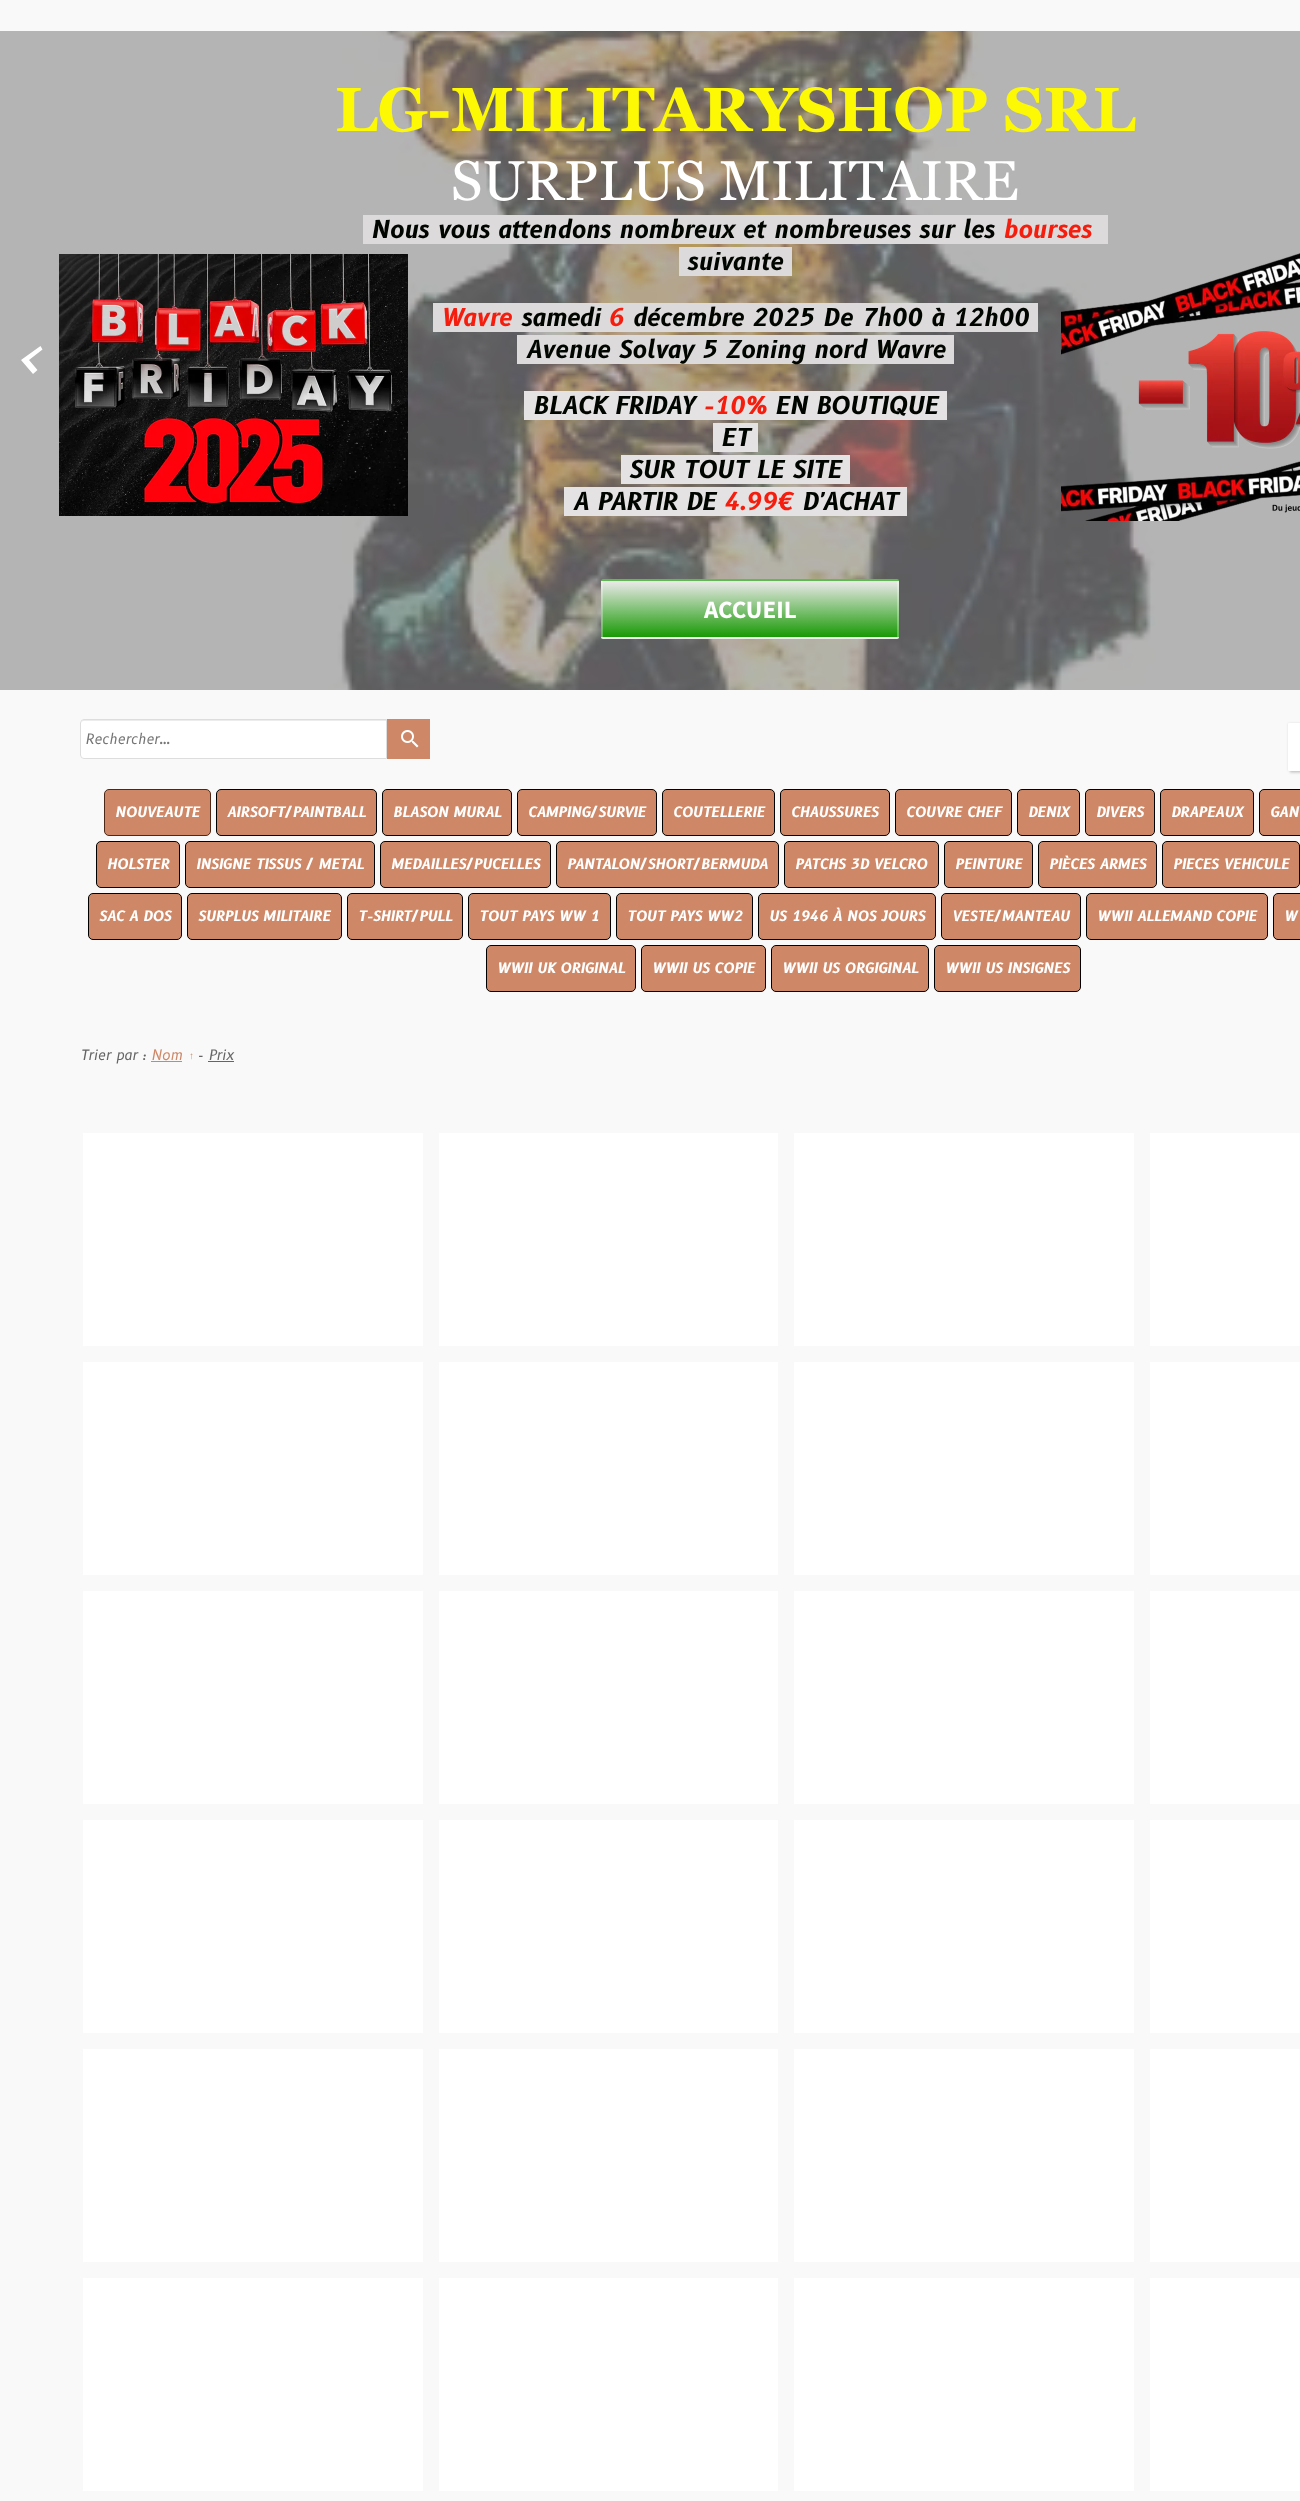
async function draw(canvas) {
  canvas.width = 1300;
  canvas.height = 2501;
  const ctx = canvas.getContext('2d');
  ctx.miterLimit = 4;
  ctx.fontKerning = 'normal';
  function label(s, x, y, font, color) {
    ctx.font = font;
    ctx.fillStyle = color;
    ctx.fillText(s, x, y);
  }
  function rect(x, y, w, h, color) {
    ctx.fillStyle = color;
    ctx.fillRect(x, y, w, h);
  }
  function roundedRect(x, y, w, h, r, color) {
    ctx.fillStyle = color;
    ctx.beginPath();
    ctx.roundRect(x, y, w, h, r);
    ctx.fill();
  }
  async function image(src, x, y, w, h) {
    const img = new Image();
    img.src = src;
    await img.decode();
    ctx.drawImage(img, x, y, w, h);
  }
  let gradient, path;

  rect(0, 0, 1300, 2501, '#f9f9f9');
  await image('assets/img1.png', 0, 31, 1300, 659);
  ctx.fillStyle = '#fff';
  path = new Path2D('M21 360L40.5 346L42.5 349.5L29 360L37.5 370L33 374Z');
  ctx.fill(path);
  label('LG-MILITARYSHOP SRL', 335, 131, 'bold 62px Georgia', '#fdf904');
  label('SURPLUS MILITAIRE', 451, 200, '56px Georgia', '#fff');
  await image('assets/img2.png', 59, 254, 349, 262);
  rect(363, 215, 745, 29, '#dcdada');
  label('Nous vous attendons nombreux et nombreuses sur les', 371, 238, 'italic bold 24px "B612"', '#010500');
  label('bourses', 1003, 238, 'italic bold 24px "B612"', '#f51d0d');
  rect(679, 247, 113, 29, '#dcdada');
  label('suivante', 687, 270, 'italic bold 24px "B612"', '#010500');
  rect(433, 303, 605, 29, '#dcdada');
  label('Wavre', 441, 326, 'italic bold 24px "B612"', '#f51d0d');
  label('samedi', 521, 326, 'italic bold 24px "B612"', '#010500');
  label('6', 608, 326, 'italic bold 24px "B612"', '#f51d0d');
  label('décembre 2025 De 7h00 à 12h00', 632, 326, 'italic bold 24px "B612"', '#010500');
  rect(517, 335, 437, 29, '#dcdada');
  label('Avenue Solvay 5 Zoning nord Wavre', 526, 358, 'italic bold 24px "B612"', '#010500');
  rect(524, 391, 423, 29, '#e4e2e2');
  label('BLACK FRIDAY', 533, 414, 'italic bold 24px "B612"', '#010500');
  label('-10%', 703, 414, 'italic bold 24px "B612"', '#f51d0d');
  label('EN BOUTIQUE', 775, 414, 'italic bold 24px "B612"', '#010500');
  rect(713, 423, 45, 29, '#e4e2e2');
  label('ET', 721, 446, 'italic bold 24px "B612"', '#010500');
  rect(621, 455, 229, 29, '#e4e2e2');
  label('SUR TOUT LE SITE', 629, 478, 'italic bold 24px "B612"', '#010500');
  rect(564, 487, 343, 29, '#e4e2e2');
  label('A PARTIR DE', 573, 510, 'italic bold 24px "B612"', '#010500');
  label('4.99€', 724, 510, 'italic bold 24px "B612"', '#f51d0d');
  label('D\'ACHAT', 802, 510, 'italic bold 24px "B612"', '#010500');
  await image('assets/img3.png', 1061, 253, 239, 268);
  gradient = ctx.createLinearGradient(750, 525, 750, 581);
  gradient.addColorStop(0, '#ebeaea');
  gradient.addColorStop(1, '#189a04');
  ctx.fillStyle = gradient;
  ctx.beginPath();
  ctx.roundRect(601, 579, 298, 2, [2, 2, 0, 0]);
  ctx.fill();
  gradient = ctx.createLinearGradient(750, 581, 750, 637);
  gradient.addColorStop(0, '#ebeaea');
  gradient.addColorStop(1, '#189a04');
  ctx.fillStyle = gradient;
  ctx.fillRect(601, 581, 298, 56);
  gradient = ctx.createLinearGradient(750, 637, 750, 693);
  gradient.addColorStop(0, '#ebeaea');
  gradient.addColorStop(1, '#189a04');
  ctx.fillStyle = gradient;
  ctx.beginPath();
  ctx.roundRect(601, 637, 298, 2, [0, 0, 2, 2]);
  ctx.fill();
  ctx.beginPath();
  ctx.roundRect(602, 580, 296, 58, 1);
  ctx.strokeStyle = '#ffffff4d';
  ctx.lineWidth = 2;
  ctx.stroke();
  label('ACCUEIL', 704, 618, 'bold 25px Source Sans Pro', '#fff');
  ctx.beginPath();
  ctx.roundRect(80, 719, 307, 40, [4, 0, 0, 4]);
  ctx.fill();
  ctx.fillStyle = '#ececec';
  path = new Path2D('M84 721H386V720H84C82 720 81 722 81 724C81 722 82 721 84 721Z');
  ctx.fill(path);
  ctx.beginPath();
  ctx.roundRect(80.5, 719.5, 306, 39, [3.5, 0, 0, 3.5]);
  ctx.strokeStyle = '#ddd';
  ctx.lineWidth = 1;
  ctx.stroke();
  label('Rechercher...', 85, 744, 'italic 14px "B612"', '#757575');
  rect(387, 719, 43, 40, '#ce8867');
  await image('assets/img4.png', 401, 730, 18, 18);
  ctx.fillStyle = '#00000026';
  ctx.filter = 'blur(1px)';
  ctx.beginPath();
  ctx.roundRect(1290, 725, 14, 48, 1);
  ctx.fill();
  ctx.filter = 'none';
  ctx.fillStyle = '#0000001a';
  ctx.filter = 'blur(1px)';
  ctx.beginPath();
  ctx.roundRect(1288, 723, 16, 48, 1);
  ctx.fill();
  ctx.filter = 'none';
  roundedRect(1288, 723, 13, 48, 1, '#fff');
  ctx.fillStyle = '#ce8867';
  ctx.beginPath();
  ctx.roundRect(104.5, 789.5, 106, 46, 4.5);
  ctx.fill();
  ctx.strokeStyle = '#4e2917';
  ctx.stroke();
  label('NOUVEAUTE', 115, 817, 'italic bold 14px "B612"', '#fff');
  ctx.fillStyle = '#ce8867';
  ctx.beginPath();
  ctx.roundRect(216.5, 789.5, 160, 46, 4.5);
  ctx.fill();
  ctx.strokeStyle = '#000';
  ctx.stroke();
  label('AIRSOFT/PAINTBALL', 227, 817, 'italic bold 14px "B612"', '#fff');
  ctx.fillStyle = '#ce8867';
  ctx.beginPath();
  ctx.roundRect(382.5, 789.5, 129, 46, 4.5);
  ctx.fill();
  ctx.stroke();
  label('BLASON MURAL', 393, 817, 'italic bold 14px "B612"', '#fff');
  ctx.fillStyle = '#ce8867';
  ctx.beginPath();
  ctx.roundRect(517.5, 789.5, 139, 46, 4.5);
  ctx.fill();
  ctx.stroke();
  label('CAMPING/SURVIE', 528, 817, 'italic bold 14px "B612"', '#fff');
  ctx.fillStyle = '#ce8867';
  ctx.beginPath();
  ctx.roundRect(662.5, 789.5, 112, 46, 4.5);
  ctx.fill();
  ctx.stroke();
  label('COUTELLERIE', 673, 817, 'italic bold 14px "B612"', '#fff');
  ctx.fillStyle = '#ce8867';
  ctx.beginPath();
  ctx.roundRect(780.5, 789.5, 109, 46, 4.5);
  ctx.fill();
  ctx.stroke();
  label('CHAUSSURES', 791, 817, 'italic bold 14px "B612"', '#fff');
  ctx.fillStyle = '#ce8867';
  ctx.beginPath();
  ctx.roundRect(895.5, 789.5, 116, 46, 4.5);
  ctx.fill();
  ctx.stroke();
  label('COUVRE CHEF', 906, 817, 'italic bold 14px "B612"', '#fff');
  ctx.fillStyle = '#ce8867';
  ctx.beginPath();
  ctx.roundRect(1017.5, 789.5, 62, 46, 4.5);
  ctx.fill();
  ctx.stroke();
  label('DENIX', 1028, 817, 'italic bold 14px "B612"', '#fff');
  ctx.fillStyle = '#ce8867';
  ctx.beginPath();
  ctx.roundRect(1085.5, 789.5, 69, 46, 4.5);
  ctx.fill();
  ctx.stroke();
  label('DIVERS', 1096, 817, 'italic bold 14px "B612"', '#fff');
  ctx.fillStyle = '#ce8867';
  ctx.beginPath();
  ctx.roundRect(1160.5, 789.5, 93, 46, 4.5);
  ctx.fill();
  ctx.stroke();
  label('DRAPEAUX', 1171, 817, 'italic bold 14px "B612"', '#fff');
  ctx.fillStyle = '#ce8867';
  ctx.beginPath();
  ctx.roundRect(1259.5, 789.5, 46, 46, 4.5);
  ctx.fill();
  ctx.stroke();
  label('GAN', 1270, 817, 'italic bold 14px "B612"', '#fff');
  ctx.fillStyle = '#ce8867';
  ctx.beginPath();
  ctx.roundRect(96.5, 841.5, 83, 46, 4.5);
  ctx.fill();
  ctx.stroke();
  label('HOLSTER', 107, 869, 'italic bold 14px "B612"', '#fff');
  ctx.fillStyle = '#ce8867';
  ctx.beginPath();
  ctx.roundRect(185.5, 841.5, 189, 46, 4.5);
  ctx.fill();
  ctx.stroke();
  label('INSIGNE TISSUS / METAL', 196, 869, 'italic bold 14px "B612"', '#fff');
  ctx.fillStyle = '#ce8867';
  ctx.beginPath();
  ctx.roundRect(380.5, 841.5, 170, 46, 4.5);
  ctx.fill();
  ctx.stroke();
  label('MEDAILLES/PUCELLES', 391, 869, 'italic bold 14px "B612"', '#fff');
  ctx.fillStyle = '#ce8867';
  ctx.beginPath();
  ctx.roundRect(556.5, 841.5, 222, 46, 4.5);
  ctx.fill();
  ctx.stroke();
  label('PANTALON/SHORT/BERMUDA', 567, 869, 'italic bold 14px "B612"', '#fff');
  ctx.fillStyle = '#ce8867';
  ctx.beginPath();
  ctx.roundRect(784.5, 841.5, 154, 46, 4.5);
  ctx.fill();
  ctx.stroke();
  label('PATCHS 3D VELCRO', 795, 869, 'italic bold 14px "B612"', '#fff');
  ctx.fillStyle = '#ce8867';
  ctx.beginPath();
  ctx.roundRect(944.5, 841.5, 88, 46, 4.5);
  ctx.fill();
  ctx.stroke();
  label('PEINTURE', 955, 869, 'italic bold 14px "B612"', '#fff');
  ctx.fillStyle = '#ce8867';
  ctx.beginPath();
  ctx.roundRect(1038.5, 841.5, 118, 46, 4.5);
  ctx.fill();
  ctx.stroke();
  label('PIÈCES ARMES', 1049, 869, 'italic bold 14px "B612"', '#fff');
  ctx.fillStyle = '#ce8867';
  ctx.beginPath();
  ctx.roundRect(1162.5, 841.5, 137, 46, 4.5);
  ctx.fill();
  ctx.stroke();
  label('PIECES VEHICULE', 1173, 869, 'italic bold 14px "B612"', '#fff');
  ctx.fillStyle = '#ce8867';
  ctx.beginPath();
  ctx.roundRect(88.5, 893.5, 93, 46, 4.5);
  ctx.fill();
  ctx.stroke();
  label('SAC A DOS', 99, 921, 'italic bold 14px "B612"', '#fff');
  ctx.fillStyle = '#ce8867';
  ctx.beginPath();
  ctx.roundRect(187.5, 893.5, 154, 46, 4.5);
  ctx.fill();
  ctx.stroke();
  label('SURPLUS MILITAIRE', 198, 921, 'italic bold 14px "B612"', '#fff');
  ctx.fillStyle = '#ce8867';
  ctx.beginPath();
  ctx.roundRect(347.5, 893.5, 115, 46, 4.5);
  ctx.fill();
  ctx.stroke();
  label('T-SHIRT/PULL', 358, 921, 'italic bold 14px "B612"', '#fff');
  ctx.fillStyle = '#ce8867';
  ctx.beginPath();
  ctx.roundRect(468.5, 893.5, 142, 46, 4.5);
  ctx.fill();
  ctx.stroke();
  label('TOUT PAYS WW 1', 479, 921, 'italic bold 14px "B612"', '#fff');
  ctx.fillStyle = '#ce8867';
  ctx.beginPath();
  ctx.roundRect(616.5, 893.5, 136, 46, 4.5);
  ctx.fill();
  ctx.stroke();
  label('TOUT PAYS WW2', 627, 921, 'italic bold 14px "B612"', '#fff');
  ctx.fillStyle = '#ce8867';
  ctx.beginPath();
  ctx.roundRect(758.5, 893.5, 177, 46, 4.5);
  ctx.fill();
  ctx.stroke();
  label('US 1946 À NOS JOURS', 769, 921, 'italic bold 14px "B612"', '#fff');
  ctx.fillStyle = '#ce8867';
  ctx.beginPath();
  ctx.roundRect(941.5, 893.5, 139, 46, 4.5);
  ctx.fill();
  ctx.stroke();
  label('VESTE/MANTEAU', 952, 921, 'italic bold 14px "B612"', '#fff');
  ctx.fillStyle = '#ce8867';
  ctx.beginPath();
  ctx.roundRect(1086.5, 893.5, 181, 46, 4.5);
  ctx.fill();
  ctx.stroke();
  label('WWII ALLEMAND COPIE', 1097, 921, 'italic bold 14px "B612"', '#fff');
  ctx.fillStyle = '#ce8867';
  ctx.beginPath();
  ctx.roundRect(1273.5, 893.5, 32, 46, 4.5);
  ctx.fill();
  ctx.stroke();
  label('W', 1284, 921, 'italic bold 14px "B612"', '#fff');
  ctx.fillStyle = '#ce8867';
  ctx.beginPath();
  ctx.roundRect(486.5, 945.5, 149, 46, 4.5);
  ctx.fill();
  ctx.stroke();
  label('WWII UK ORIGINAL', 497, 973, 'italic bold 14px "B612"', '#fff');
  ctx.fillStyle = '#ce8867';
  ctx.beginPath();
  ctx.roundRect(641.5, 945.5, 124, 46, 4.5);
  ctx.fill();
  ctx.stroke();
  label('WWII US COPIE', 652, 973, 'italic bold 14px "B612"', '#fff');
  ctx.fillStyle = '#ce8867';
  ctx.beginPath();
  ctx.roundRect(771.5, 945.5, 157, 46, 4.5);
  ctx.fill();
  ctx.stroke();
  label('WWII US ORGIGINAL', 782, 973, 'italic bold 14px "B612"', '#fff');
  ctx.fillStyle = '#ce8867';
  ctx.beginPath();
  ctx.roundRect(934.5, 945.5, 146, 46, 4.5);
  ctx.fill();
  ctx.stroke();
  label('WWII US INSIGNES', 945, 973, 'italic bold 14px "B612"', '#fff');
  label('Trier par :', 80, 1060, 'italic 14px "B612"', '#656565');
  label('Nom', 151, 1060, 'italic 14px "B612"', '#ce8867');
  rect(151, 1061, 31, 1, '#ce8867');
  label('↑', 189, 1059, 'italic 10px Liberation Serif', '#ce8867');
  label('- Prix', 197, 1060, 'italic 14px "B612"', '#656565');
  rect(208, 1061, 26, 1, '#656565');
  rect(83, 1133, 340, 213, '#fff');
  rect(439, 1133, 339, 213, '#fff');
  rect(794, 1133, 340, 213, '#fff');
  rect(1150, 1133, 150, 213, '#fff');
  rect(83, 1362, 340, 213, '#fff');
  rect(439, 1362, 339, 213, '#fff');
  rect(794, 1362, 340, 213, '#fff');
  rect(1150, 1362, 150, 213, '#fff');
  rect(83, 1591, 340, 213, '#fff');
  rect(439, 1591, 339, 213, '#fff');
  rect(794, 1591, 340, 213, '#fff');
  rect(1150, 1591, 150, 213, '#fff');
  rect(83, 1820, 340, 213, '#fff');
  rect(439, 1820, 339, 213, '#fff');
  rect(794, 1820, 340, 213, '#fff');
  rect(1150, 1820, 150, 213, '#fff');
  rect(83, 2049, 340, 213, '#fff');
  rect(439, 2049, 339, 213, '#fff');
  rect(794, 2049, 340, 213, '#fff');
  rect(1150, 2049, 150, 213, '#fff');
  rect(83, 2278, 340, 213, '#fff');
  rect(439, 2278, 339, 213, '#fff');
  rect(794, 2278, 340, 213, '#fff');
  rect(1150, 2278, 150, 213, '#fff');
}

draw(document.querySelector('canvas'));
